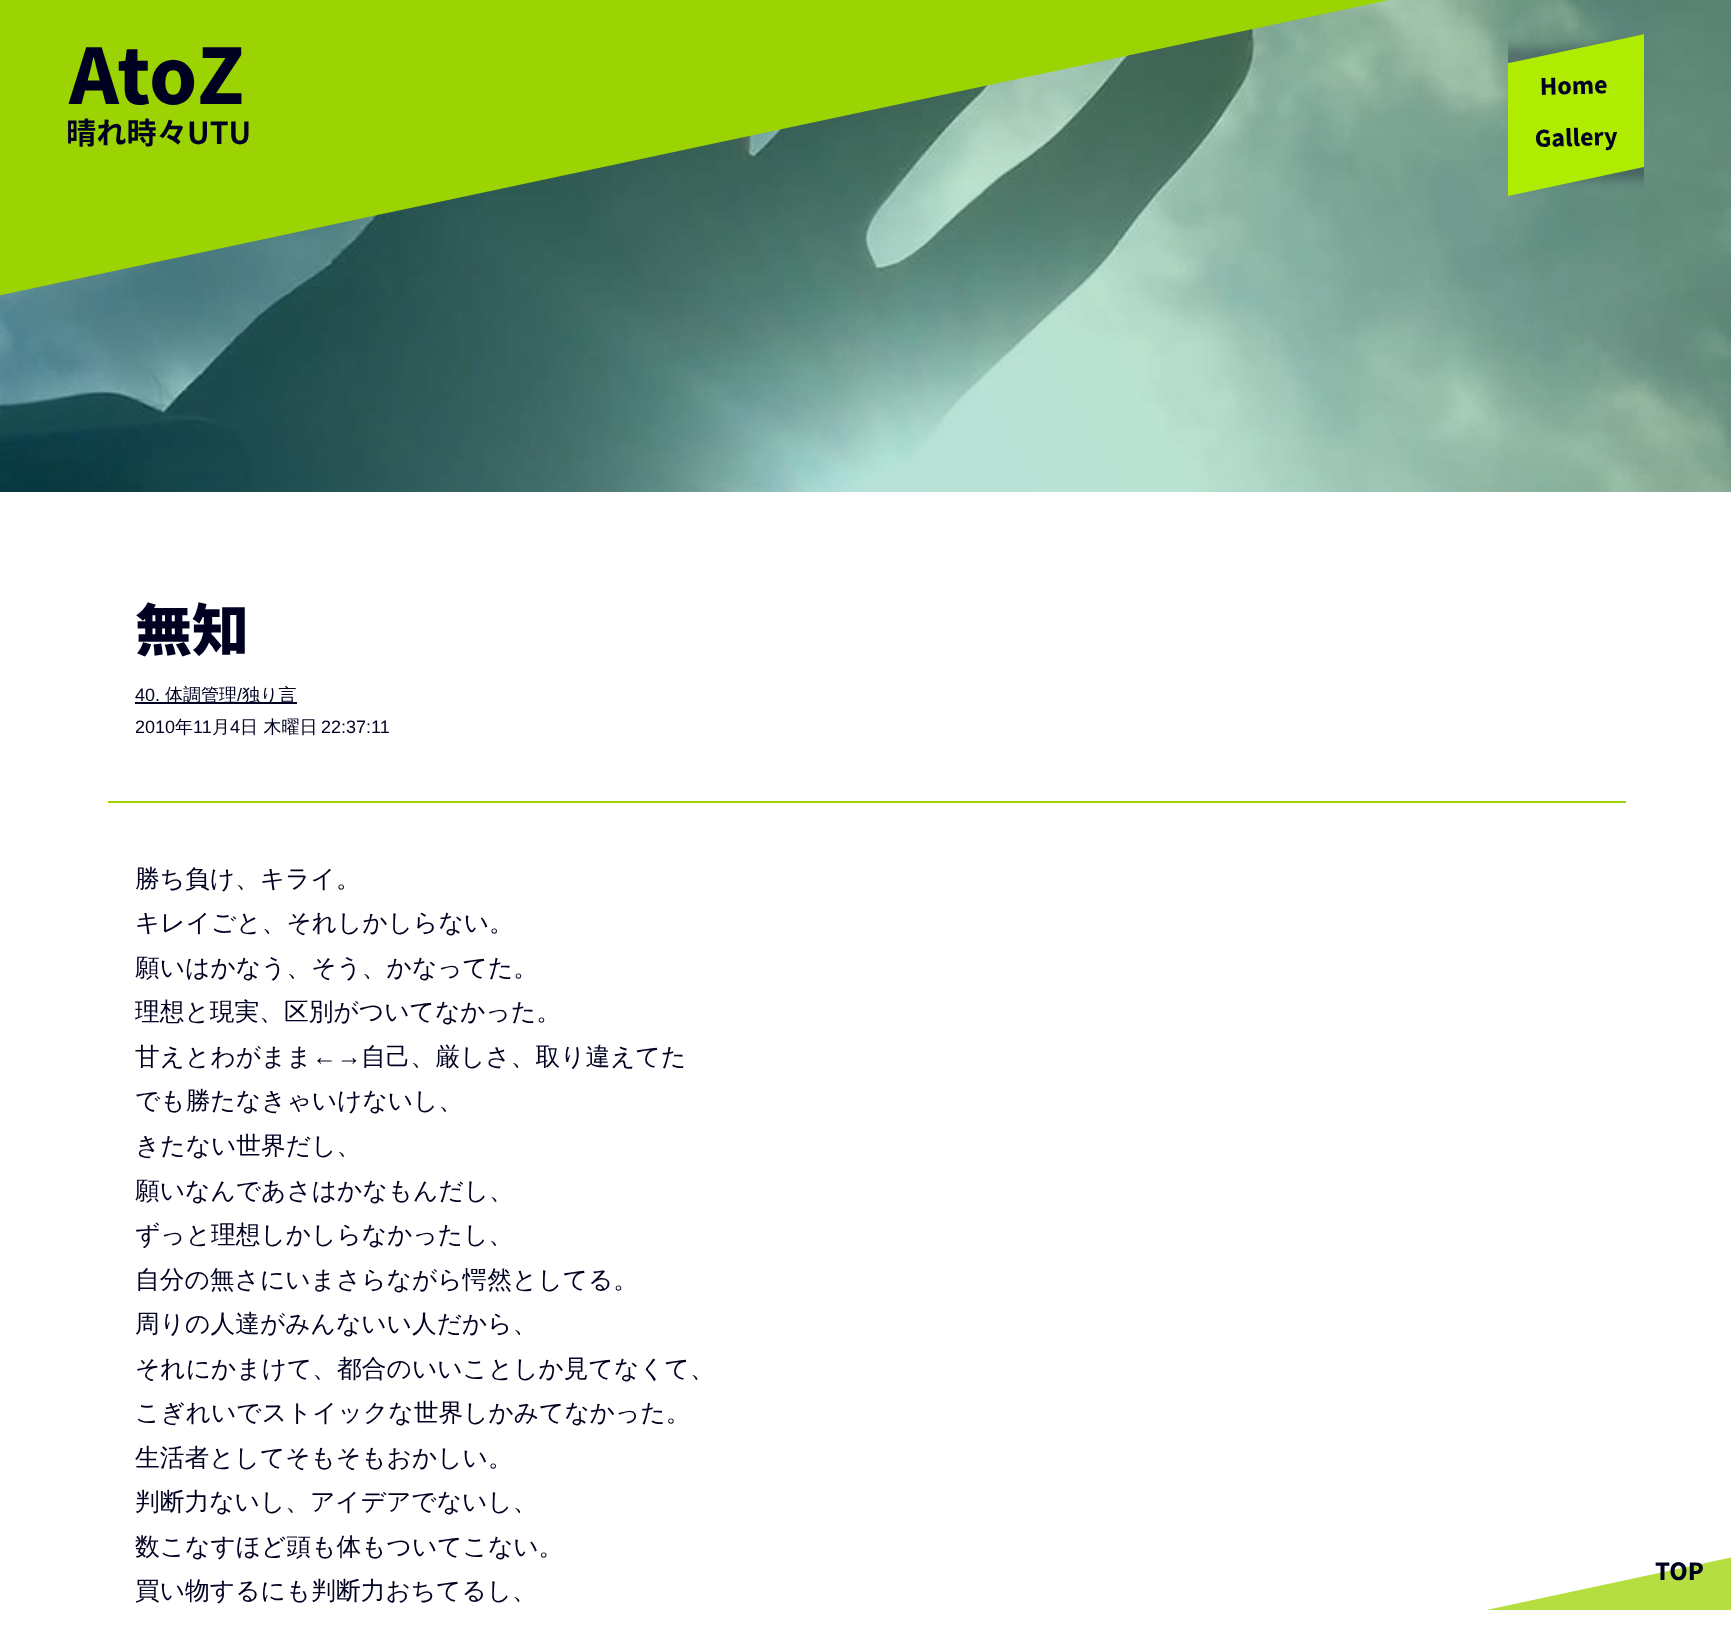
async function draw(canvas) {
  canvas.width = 1731;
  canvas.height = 1639;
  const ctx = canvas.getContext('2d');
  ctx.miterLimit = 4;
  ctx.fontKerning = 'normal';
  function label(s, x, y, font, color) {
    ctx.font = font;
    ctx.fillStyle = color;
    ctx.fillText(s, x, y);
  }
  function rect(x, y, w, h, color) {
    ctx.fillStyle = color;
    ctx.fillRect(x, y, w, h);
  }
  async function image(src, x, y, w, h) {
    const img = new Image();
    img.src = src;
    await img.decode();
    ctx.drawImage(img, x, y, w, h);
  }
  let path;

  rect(0, 0, 1731, 1639, '#fff');
  await image('assets/img1.png', 0, 0, 1731, 492);
  ctx.fillStyle = '#9cd302';
  path = new Path2D('M-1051 59L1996-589L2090-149L-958 499Z');
  ctx.fill(path);
  label('AtoZ', 69, 104, 'bold 87px Source Sans Pro', '#000021');
  label('晴れ時々UTU', 66, 144, 'bold 30.25px Noto Sans CJK JP', '#000021');
  ctx.save();
  ctx.beginPath();
  ctx.rect(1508, 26, 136, 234);
  ctx.clip();
  ctx.fillStyle = '#0000214d';
  ctx.filter = 'blur(6px)';
  ctx.beginPath();
  ctx.rect(1463, 48, 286, 131);
  ctx.fill();
  ctx.filter = 'none';
  ctx.restore();
  ctx.save();
  ctx.beginPath();
  ctx.rect(1508, 26, 136, 234);
  ctx.clip();
  ctx.fillStyle = '#afec02';
  path = new Path2D('M1453 75L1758 10L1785 137L1480 202Z');
  ctx.fill(path);
  ctx.restore();
  ctx.font = 'bold 26px Source Sans Pro';
  ctx.save();
  ctx.translate(1540, 95);
  ctx.rotate(-1.5 * Math.PI / 180);
  ctx.fillText('Home', 0, 0);
  ctx.restore();
  ctx.save();
  ctx.translate(1535, 147);
  ctx.rotate(-1.5 * Math.PI / 180);
  ctx.fillText('Gallery', 0, 0);
  ctx.restore();
  rect(108, 801, 1518, 2, '#9cd302');
  label('無知', 135, 651, '900 57px Noto Sans CJK JP', '#000021');
  label('40.', 135, 701, '18px Liberation Sans', '#000021');
  rect(135, 702, 162, 2, '#000021');
  label('体調管理', 165, 701, '500 18px WenQuanYi Zen Hei', '#000021');
  label('/', 237, 701, '18px Liberation Sans', '#000021');
  label('独り言', 242, 701, '500 18px WenQuanYi Zen Hei', '#000021');
  label('2010', 135, 733, '18px Liberation Sans', '#000021');
  label('年', 175, 733, '500 18px WenQuanYi Zen Hei', '#000021');
  label('11', 193, 733, '18px Liberation Sans', '#000021');
  label('月', 212, 733, '500 18px WenQuanYi Zen Hei', '#000021');
  label('4', 230, 733, '18px Liberation Sans', '#000021');
  label('日 木曜日', 240, 733, '500 18px WenQuanYi Zen Hei', '#000021');
  label('22:37:11', 321, 733, '18px Liberation Sans', '#000021');
  label('勝ち負け、キライ。', 135, 887, '500 24.75px WenQuanYi Zen Hei', '#000021');
  label('キレイごと、それしかしらない。', 135, 931, '500 24.75px WenQuanYi Zen Hei', '#000021');
  label('願いはかなう、そう、かなってた。', 135, 976, '500 24.75px WenQuanYi Zen Hei', '#000021');
  label('理想と現実、区別がついてなかった。', 135, 1020, '500 24.75px WenQuanYi Zen Hei', '#000021');
  label('甘えとわがまま', 135, 1065, '500 24.75px WenQuanYi Zen Hei', '#000021');
  label('←→', 312, 1065, '24.75px Liberation Sans', '#000021');
  label('自己、厳しさ、取り違えてた', 361, 1065, '500 24.75px WenQuanYi Zen Hei', '#000021');
  label('でも勝たなきゃいけないし、', 135, 1109, '500 24.75px WenQuanYi Zen Hei', '#000021');
  label('きたない世界だし、', 135, 1154, '500 24.75px WenQuanYi Zen Hei', '#000021');
  label('願いなんであさはかなもんだし、', 135, 1199, '500 24.75px WenQuanYi Zen Hei', '#000021');
  label('ずっと理想しかしらなかったし、', 135, 1243, '500 24.75px WenQuanYi Zen Hei', '#000021');
  label('自分の無さにいまさらながら愕然としてる。', 135, 1288, '500 24.75px WenQuanYi Zen Hei', '#000021');
  label('周りの人達がみんないい人だから、', 135, 1332, '500 24.75px WenQuanYi Zen Hei', '#000021');
  label('それにかまけて、都合のいいことしか見てなくて、', 135, 1377, '500 24.75px WenQuanYi Zen Hei', '#000021');
  label('こぎれいでストイックな世界しかみてなかった。', 135, 1421, '500 24.75px WenQuanYi Zen Hei', '#000021');
  label('生活者としてそもそもおかしい。', 135, 1466, '500 24.75px WenQuanYi Zen Hei', '#000021');
  label('判断力ないし、アイデアでないし、', 135, 1510, '500 24.75px WenQuanYi Zen Hei', '#000021');
  label('数こなすほど頭も体もついてこない。', 135, 1555, '500 24.75px WenQuanYi Zen Hei', '#000021');
  label('買い物するにも判断力おちてるし、', 135, 1599, '500 24.75px WenQuanYi Zen Hei', '#000021');
  ctx.save();
  ctx.beginPath();
  ctx.rect(1445, 1545, 286, 65);
  ctx.clip();
  ctx.fillStyle = '#b5de41';
  path = new Path2D('M1449 1618L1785 1546L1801 1620L1464 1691Z');
  ctx.fill(path);
  ctx.restore();
  label('TOP', 1655, 1580, 'bold 27px Source Sans Pro', '#000021');
}

draw(document.querySelector('canvas'));
